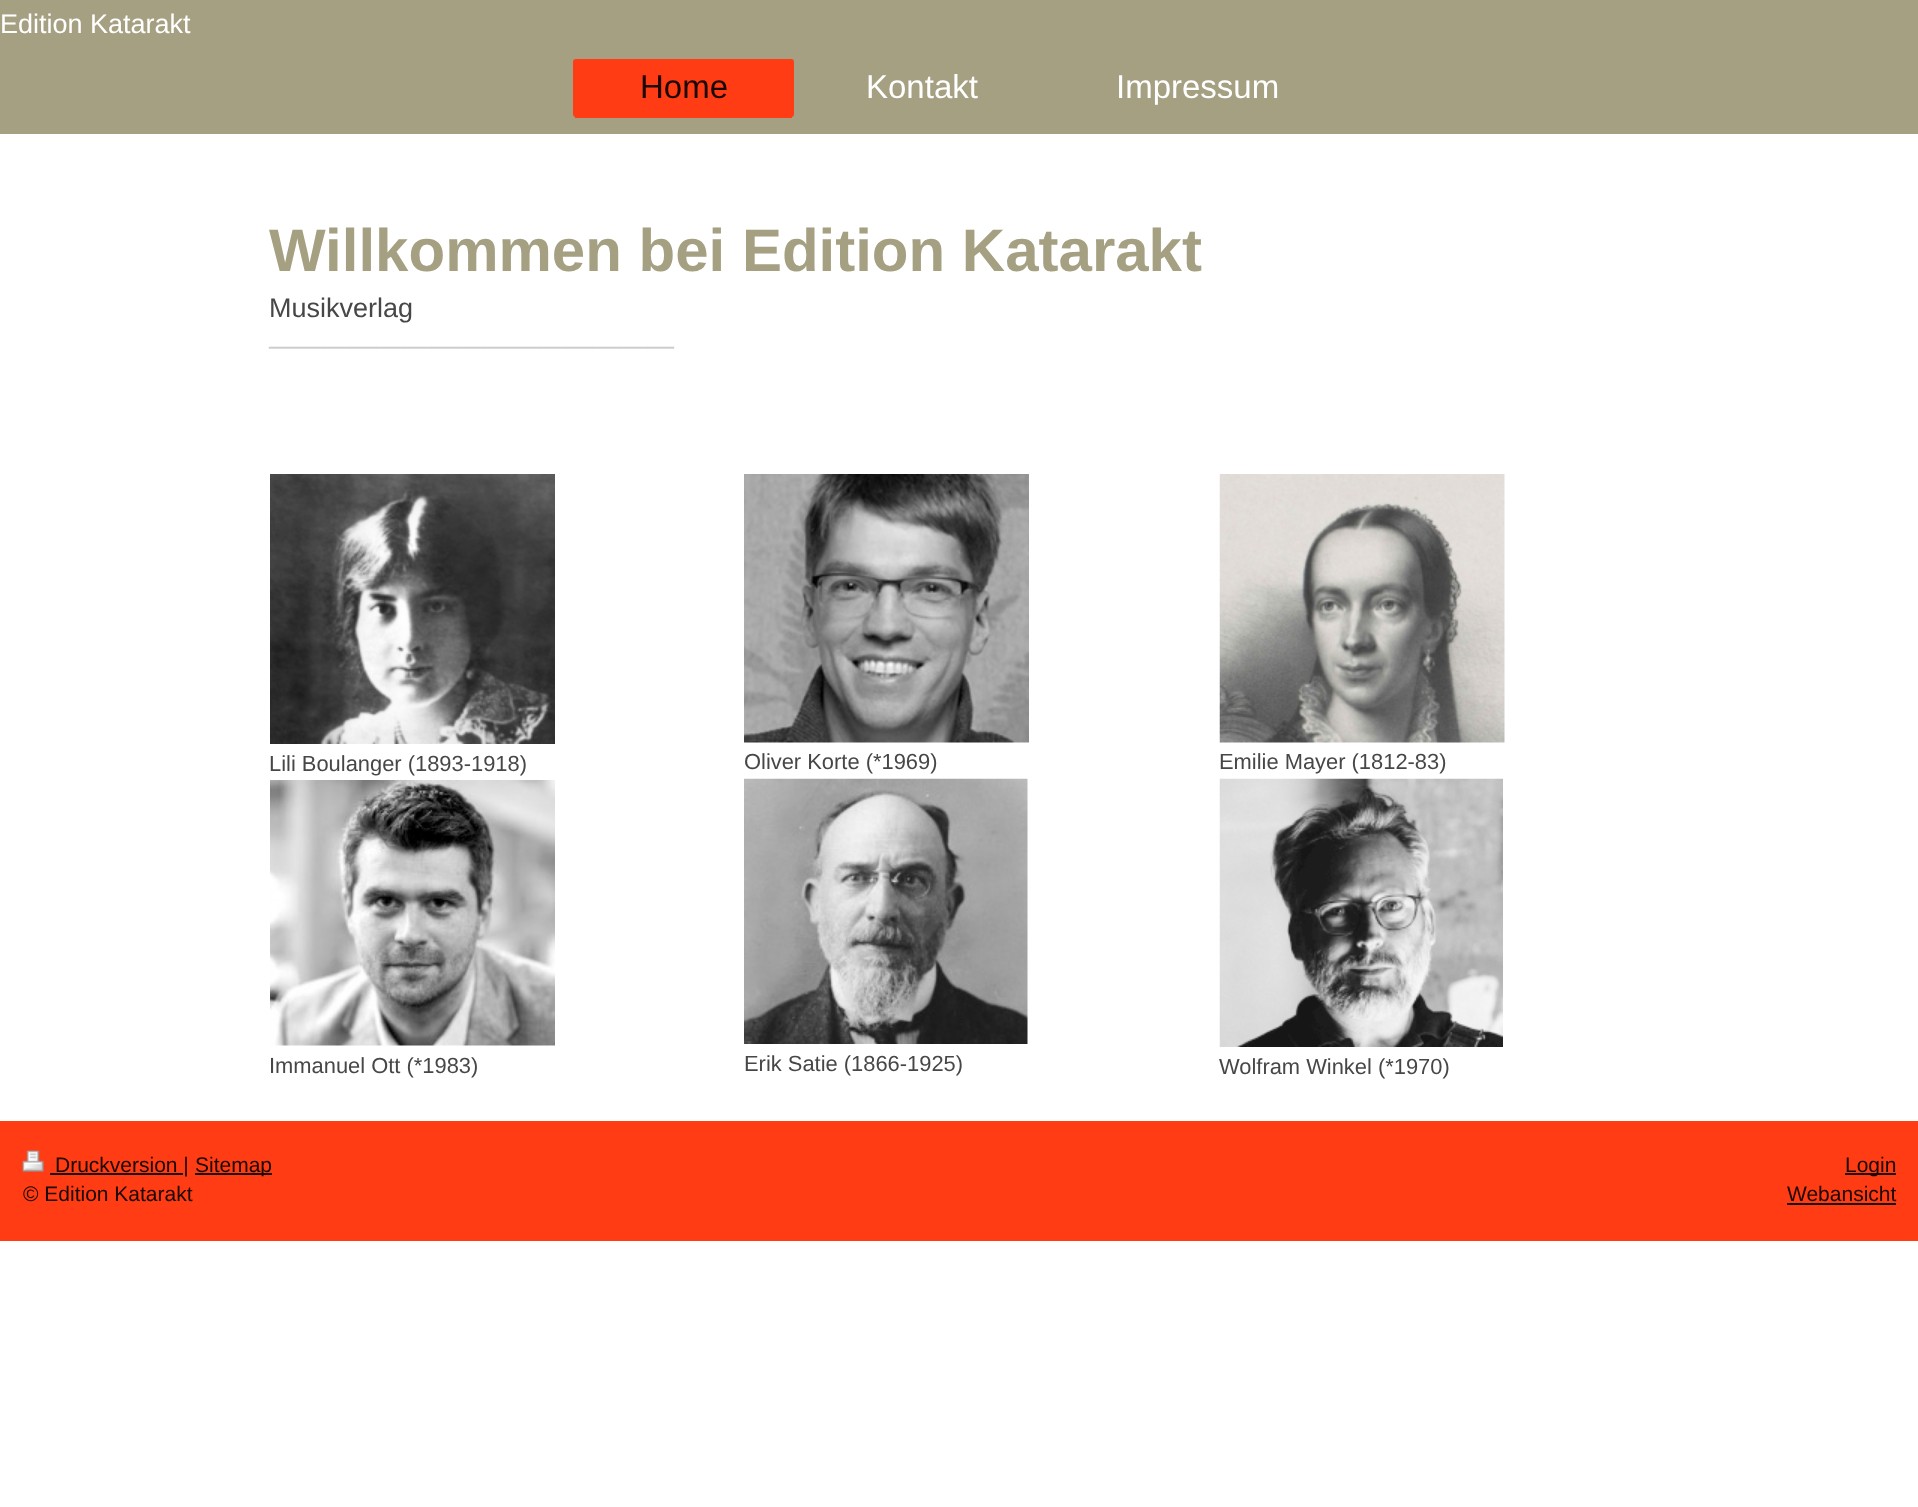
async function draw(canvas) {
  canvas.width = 1918;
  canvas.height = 1507;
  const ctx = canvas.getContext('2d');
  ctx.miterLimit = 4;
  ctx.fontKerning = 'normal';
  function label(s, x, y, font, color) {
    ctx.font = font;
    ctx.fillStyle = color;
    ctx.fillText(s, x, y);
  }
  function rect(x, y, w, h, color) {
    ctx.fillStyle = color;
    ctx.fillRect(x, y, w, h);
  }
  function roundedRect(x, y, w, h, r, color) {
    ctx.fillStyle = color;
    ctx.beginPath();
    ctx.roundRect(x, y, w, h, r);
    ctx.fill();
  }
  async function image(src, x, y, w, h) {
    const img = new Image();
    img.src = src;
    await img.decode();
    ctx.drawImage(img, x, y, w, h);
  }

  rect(0, 0, 1918, 1507, '#fff');
  rect(0, 0, 1918, 134, '#a5a082');
  label('Edition Katarakt', 0, 33, '27px Liberation Sans', '#fff');
  roundedRect(573, 59, 221, 58, 3, '#ff3c14');
  rect(575, 116, 217, 2, '#ff3c14');
  label('Home', 640, 98, '33px Liberation Sans', '#1a0602');
  label('Kontakt', 866, 98, '33px Liberation Sans', '#fff');
  label('Impressum', 1116, 98, '33px Liberation Sans', '#fff');
  label('Willkommen bei Edition Katarakt', 269, 271, 'bold 60px Liberation Sans', '#a5a082');
  label('Musikverlag', 269, 317, '27px Liberation Sans', '#474747');
  label('———————————————', 269, 354, 'bold 27px Liberation Serif', '#ccc');
  await image('assets/img1.png', 270, 474, 285, 270);
  label('Lili Boulanger (1893-1918)', 269, 771, '21.9px Liberation Sans', '#474747');
  await image('assets/img2.png', 270, 780, 285, 266);
  label('Immanuel Ott (*1983)', 269, 1073, '21.9px Liberation Sans', '#474747');
  await image('assets/img3.png', 744, 474, 285, 269);
  label('Oliver Korte (*1969)', 744, 769, '21.9px Liberation Sans', '#474747');
  await image('assets/img4.png', 744, 778, 284, 266);
  label('Erik Satie (1866-1925)', 744, 1071, '21.9px Liberation Sans', '#474747');
  await image('assets/img5.png', 1219, 474, 286, 269);
  label('Emilie Mayer (1812-83)', 1219, 769, '21.9px Liberation Sans', '#474747');
  await image('assets/img6.png', 1219, 778, 284, 269);
  label('Wolfram Winkel (*1970)', 1219, 1074, '21.9px Liberation Sans', '#474747');
  rect(0, 1121, 1918, 120, '#ff3c14');
  await image('assets/img7.png', 22, 1150, 22, 22);
  rect(50, 1173, 133, 2, '#1a0602');
  label('Druckversion |', 55, 1172, '21px Liberation Sans', '#1a0602');
  rect(195, 1173, 77, 2, '#1a0602');
  label('Sitemap', 195, 1172, '21px Liberation Sans', '#1a0602');
  label('© Edition Katarakt', 23, 1201, '21px Liberation Sans', '#1a0602');
  rect(1845, 1173, 51, 2, '#1a0602');
  label('Login', 1845, 1172, '21px Liberation Sans', '#1a0602');
  label('Webansicht', 1787, 1201, '21px Liberation Sans', '#1a0602');
  rect(1787, 1203, 109, 2, '#1a0602');
}

draw(document.querySelector('canvas'));
